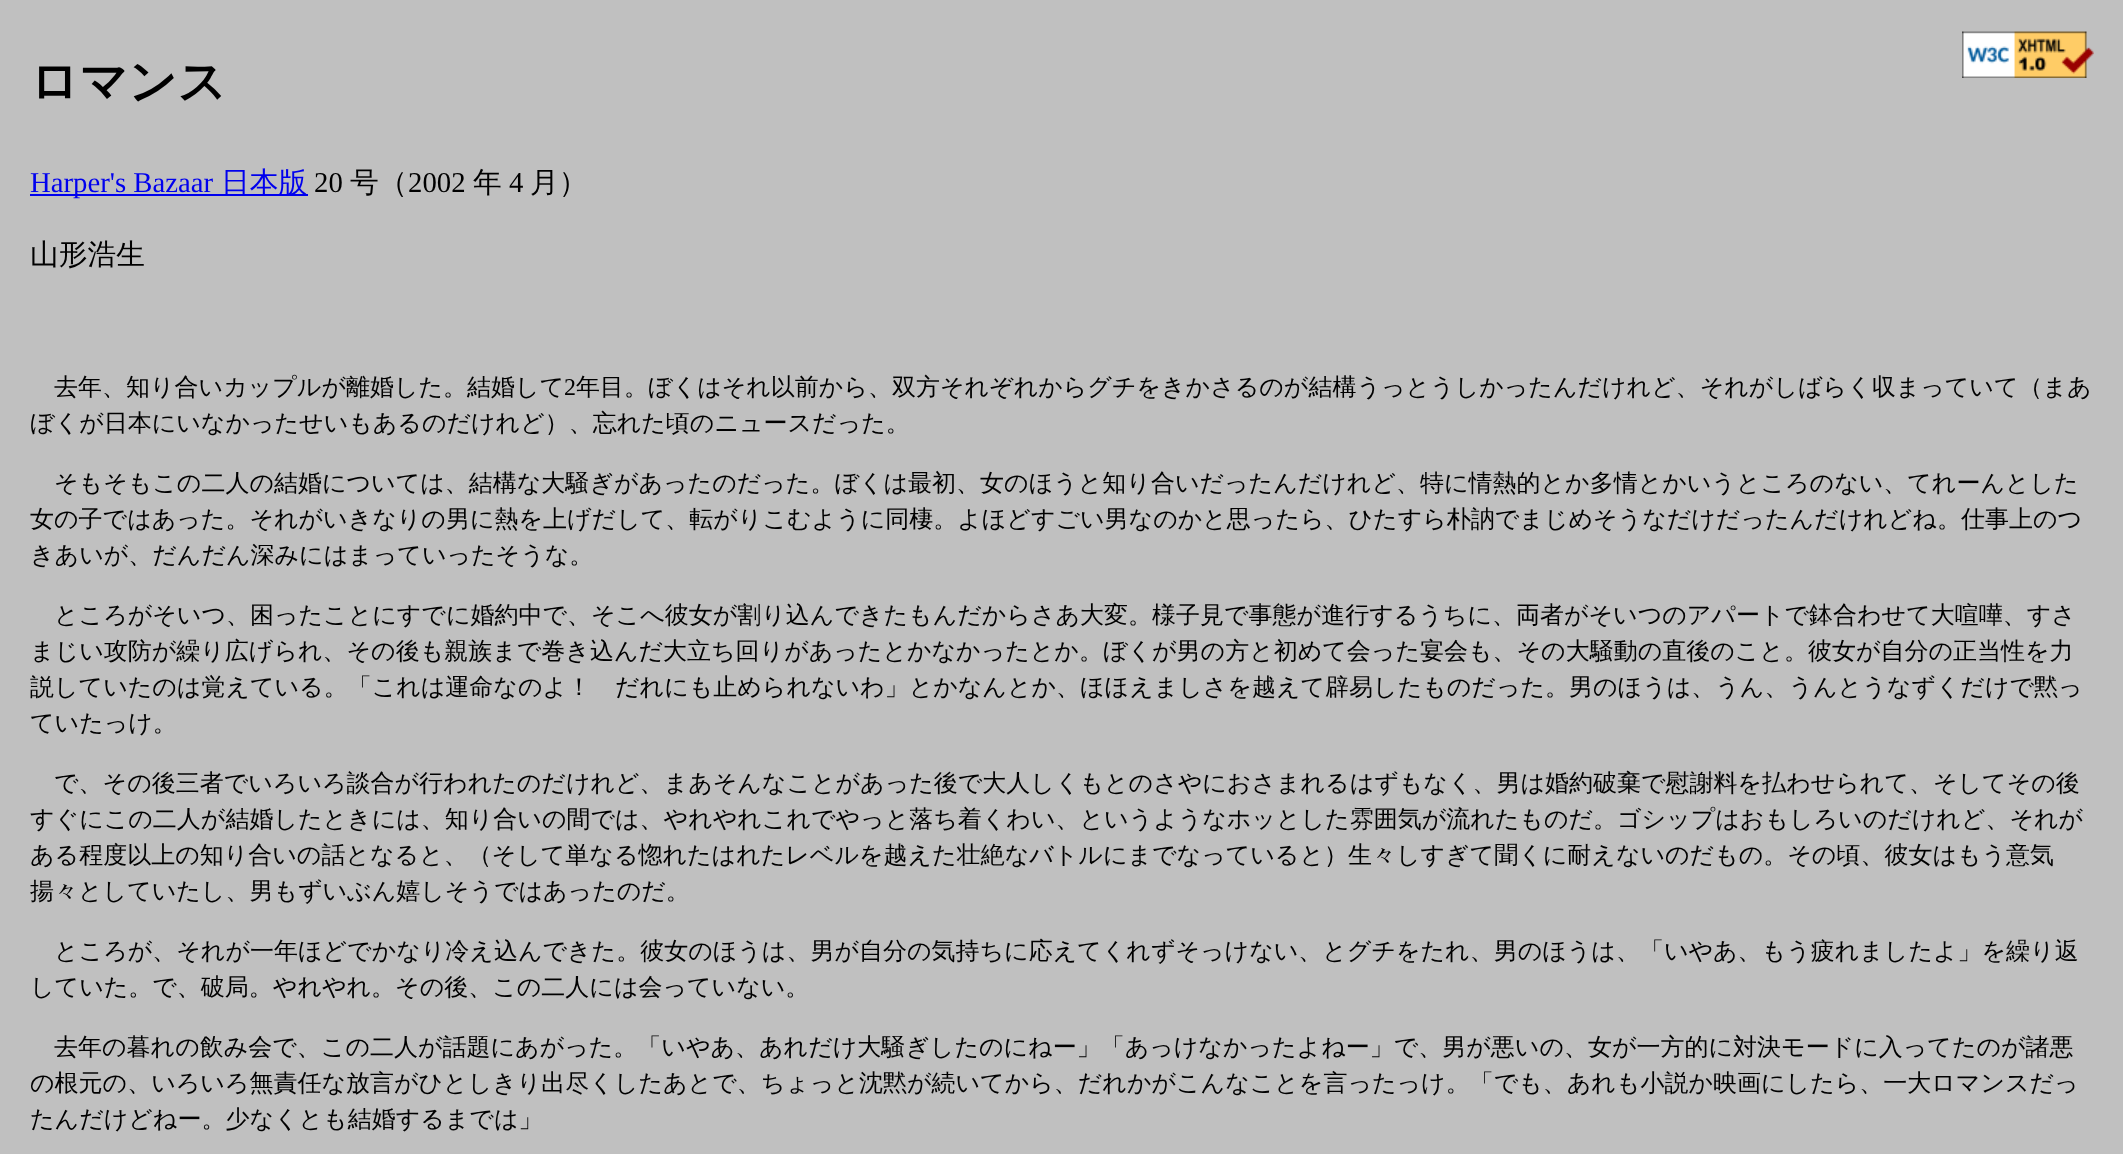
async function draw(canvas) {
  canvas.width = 2123;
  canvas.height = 1154;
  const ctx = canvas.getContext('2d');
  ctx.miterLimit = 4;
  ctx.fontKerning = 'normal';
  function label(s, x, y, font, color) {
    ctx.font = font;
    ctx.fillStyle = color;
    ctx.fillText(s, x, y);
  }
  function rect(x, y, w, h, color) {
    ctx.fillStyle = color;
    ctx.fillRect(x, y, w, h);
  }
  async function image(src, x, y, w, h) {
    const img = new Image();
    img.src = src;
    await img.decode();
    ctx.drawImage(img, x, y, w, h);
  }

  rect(0, 0, 2123, 1154, '#c0c0c0');
  await image('assets/img1.png', 1962, 31, 132, 47);
  label('ロマンス', 30, 98, 'bold 48px WenQuanYi Zen Hei', '#000');
  rect(30, 194, 278, 2, '#00e');
  label('Harper\'s Bazaar', 30, 192, '28.75px Liberation Serif', '#00e');
  label('日本版', 221, 192, '500 28.75px WenQuanYi Zen Hei', '#00e');
  label('20', 314, 192, '28.75px Liberation Serif', '#000');
  label('号（', 350, 192, '500 28.75px WenQuanYi Zen Hei', '#000');
  label('2002', 408, 192, '28.75px Liberation Serif', '#000');
  label('年', 473, 192, '500 28.75px WenQuanYi Zen Hei', '#000');
  label('4', 509, 192, '28.75px Liberation Serif', '#000');
  label('月）', 530, 192, '500 28.75px WenQuanYi Zen Hei', '#000');
  label('山形浩生', 30, 264, '500 28.75px WenQuanYi Zen Hei', '#000');
  label('去年、知り合いカップルが離婚した。結婚して', 54, 395, '500 24px WenQuanYi Zen Hei', '#000');
  label('2', 564, 395, '24px Liberation Serif', '#000');
  label('年目。ぼくはそれ以前から、双方それぞれからグチをきかさるのが結構うっとうしかったんだけれど、それがしばらく収まっていて（まあ', 576, 395, '500 24px WenQuanYi Zen Hei', '#000');
  label('ぼくが日本にいなかったせいもあるのだけれど）、忘れた頃のニュースだった。', 30, 431, '500 24px WenQuanYi Zen Hei', '#000');
  label('そもそもこの二人の結婚については、結構な大騒ぎがあったのだった。ぼくは最初、女のほうと知り合いだったんだけれど、特に情熱的とか多情とかいうところのない、てれーんとした', 54, 491, '500 24px WenQuanYi Zen Hei', '#000');
  label('女の子ではあった。それがいきなりの男に熱を上げだして、転がりこむように同棲。よほどすごい男なのかと思ったら、ひたすら朴訥でまじめそうなだけだったんだけれどね。仕事上のつ', 30, 527, '500 24px WenQuanYi Zen Hei', '#000');
  label('きあいが、だんだん深みにはまっていったそうな。', 30, 563, '500 24px WenQuanYi Zen Hei', '#000');
  label('ところがそいつ、困ったことにすでに婚約中で、そこへ彼女が割り込んできたもんだからさあ大変。様子見で事態が進行するうちに、両者がそいつのアパートで鉢合わせて大喧嘩、すさ', 54, 623, '500 24px WenQuanYi Zen Hei', '#000');
  label('まじい攻防が繰り広げられ、その後も親族まで巻き込んだ大立ち回りがあったとかなかったとか。ぼくが男の方と初めて会った宴会も、その大騒動の直後のこと。彼女が自分の正当性を力', 30, 659, '500 24px WenQuanYi Zen Hei', '#000');
  label('説していたのは覚えている。「これは運命なのよ！　だれにも止められないわ」とかなんとか、ほほえましさを越えて辟易したものだった。男のほうは、うん、うんとうなずくだけで黙っ', 30, 695, '500 24px WenQuanYi Zen Hei', '#000');
  label('ていたっけ。', 30, 731, '500 24px WenQuanYi Zen Hei', '#000');
  label('で、その後三者でいろいろ談合が行われたのだけれど、まあそんなことがあった後で大人しくもとのさやにおさまれるはずもなく、男は婚約破棄で慰謝料を払わせられて、そしてその後', 54, 791, '500 24px WenQuanYi Zen Hei', '#000');
  label('すぐにこの二人が結婚したときには、知り合いの間では、やれやれこれでやっと落ち着くわい、というようなホッとした雰囲気が流れたものだ。ゴシップはおもしろいのだけれど、それが', 30, 827, '500 24px WenQuanYi Zen Hei', '#000');
  label('ある程度以上の知り合いの話となると、（そして単なる惚れたはれたレベルを越えた壮絶なバトルにまでなっていると）生々しすぎて聞くに耐えないのだもの。その頃、彼女はもう意気', 30, 863, '500 24px WenQuanYi Zen Hei', '#000');
  label('揚々としていたし、男もずいぶん嬉しそうではあったのだ。', 30, 899, '500 24px WenQuanYi Zen Hei', '#000');
  label('ところが、それが一年ほどでかなり冷え込んできた。彼女のほうは、男が自分の気持ちに応えてくれずそっけない、とグチをたれ、男のほうは、「いやあ、もう疲れましたよ」を繰り返', 54, 959, '500 24px WenQuanYi Zen Hei', '#000');
  label('していた。で、破局。やれやれ。その後、この二人には会っていない。', 30, 995, '500 24px WenQuanYi Zen Hei', '#000');
  label('去年の暮れの飲み会で、この二人が話題にあがった。「いやあ、あれだけ大騒ぎしたのにねー」「あっけなかったよねー」で、男が悪いの、女が一方的に対決モードに入ってたのが諸悪', 54, 1055, '500 24px WenQuanYi Zen Hei', '#000');
  label('の根元の、いろいろ無責任な放言がひとしきり出尽くしたあとで、ちょっと沈黙が続いてから、だれかがこんなことを言ったっけ。「でも、あれも小説か映画にしたら、一大ロマンスだっ', 30, 1091, '500 24px WenQuanYi Zen Hei', '#000');
  label('たんだけどねー。少なくとも結婚するまでは」', 30, 1127, '500 24px WenQuanYi Zen Hei', '#000');
}

draw(document.querySelector('canvas'));
